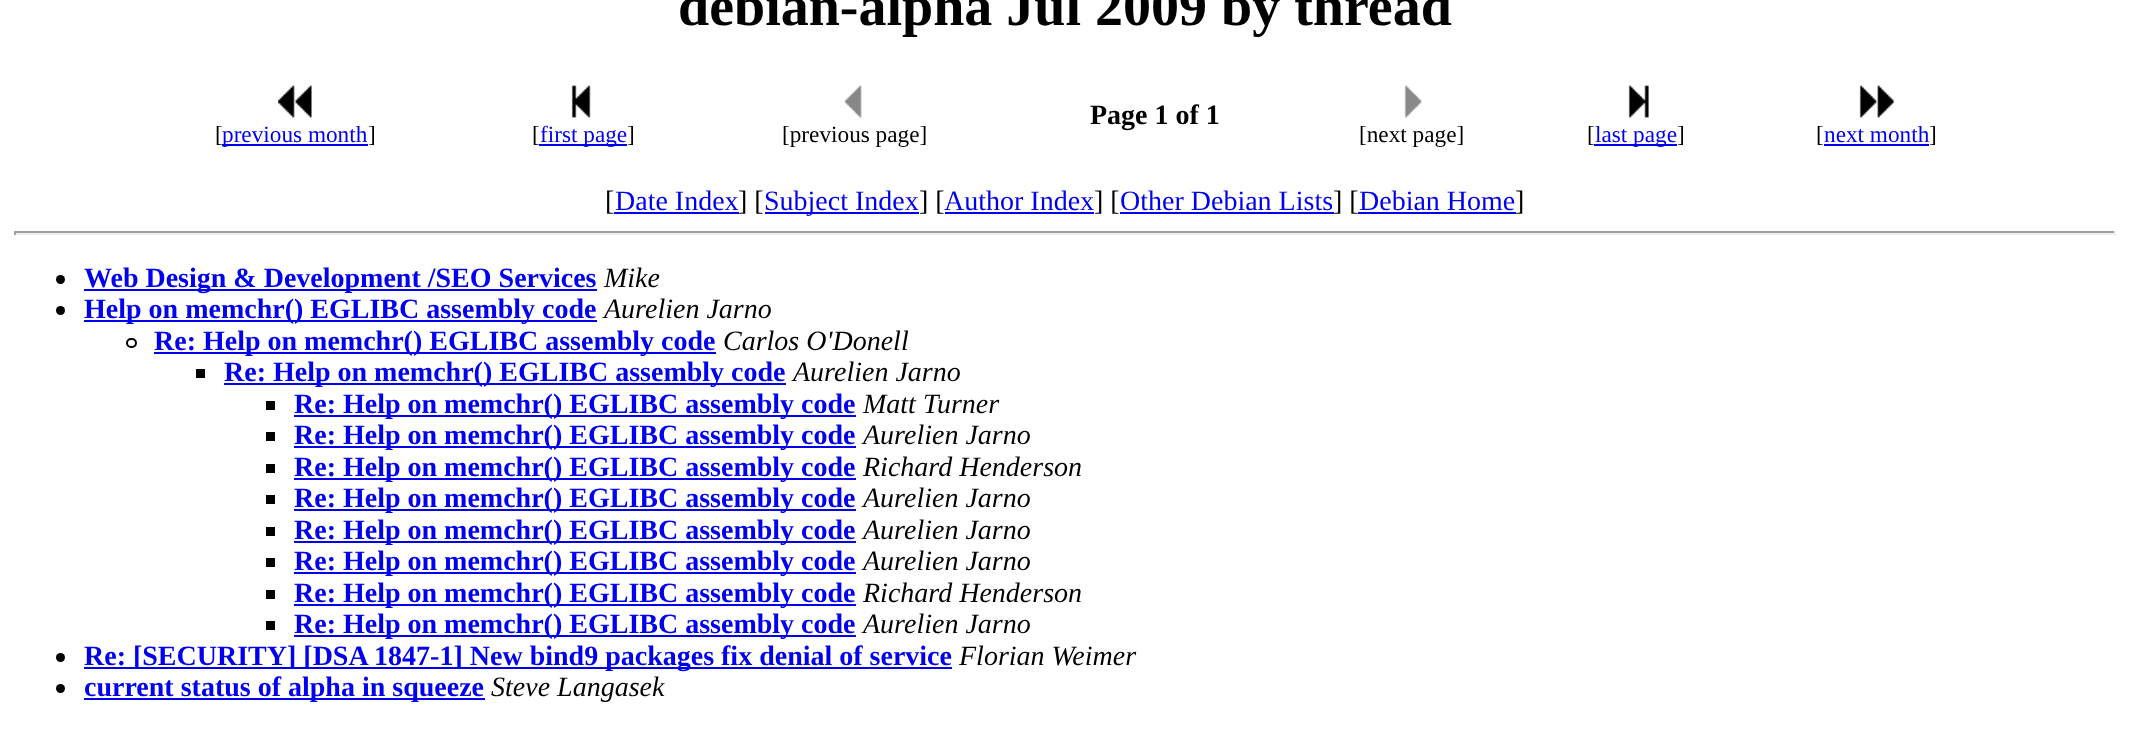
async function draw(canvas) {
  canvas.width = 2129;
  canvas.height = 743;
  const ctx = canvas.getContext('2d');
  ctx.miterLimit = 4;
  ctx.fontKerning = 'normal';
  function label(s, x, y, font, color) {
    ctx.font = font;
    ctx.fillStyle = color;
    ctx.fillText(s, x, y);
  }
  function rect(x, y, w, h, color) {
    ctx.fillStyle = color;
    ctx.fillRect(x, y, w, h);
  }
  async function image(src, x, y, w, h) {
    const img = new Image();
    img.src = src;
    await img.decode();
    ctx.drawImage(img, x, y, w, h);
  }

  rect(0, 0, 2129, 743, '#fff');
  label('debian-alpha Jul 2009 by thread', 678, 25, 'bold 56px Liberation Serif', '#000');
  label('Page 1 of 1', 1090, 124, 'bold 28px Liberation Serif', '#000');
  await image('assets/img1.png', 278, 85, 34, 33);
  label('[', 215, 142, '23.25px Liberation Serif', '#000');
  rect(222, 144, 146, 2, '#00e');
  label('previous month', 222, 142, '23.25px Liberation Serif', '#00e');
  label(']', 368, 142, '23.25px Liberation Serif', '#000');
  await image('assets/img2.png', 571, 85, 20, 33);
  label('[', 532, 142, '23.25px Liberation Serif', '#000');
  rect(539, 144, 88, 2, '#00e');
  label('first page', 540, 142, '23.25px Liberation Serif', '#00e');
  label(']', 627, 142, '23.25px Liberation Serif', '#000');
  await image('assets/img3.png', 844, 85, 18, 33);
  label('[previous page]', 782, 142, '23.25px Liberation Serif', '#000');
  await image('assets/img4.png', 1404, 85, 18, 33);
  label('[next page]', 1359, 142, '23.25px Liberation Serif', '#000');
  await image('assets/img5.png', 1628, 85, 21, 33);
  label('[', 1587, 142, '23.25px Liberation Serif', '#000');
  rect(1594, 144, 83, 2, '#00e');
  label('last page', 1595, 142, '23.25px Liberation Serif', '#00e');
  label(']', 1677, 142, '23.25px Liberation Serif', '#000');
  await image('assets/img6.png', 1859, 85, 35, 33);
  label('[', 1816, 142, '23.25px Liberation Serif', '#000');
  rect(1824, 144, 105, 2, '#00e');
  label('next month', 1824, 142, '23.25px Liberation Serif', '#00e');
  label(']', 1929, 142, '23.25px Liberation Serif', '#000');
  label('[', 605, 210, '28px Liberation Serif', '#000');
  label('Date Index', 615, 210, '28px Liberation Serif', '#00e');
  rect(614, 212, 125, 2, '#00e');
  label('] [', 738, 210, '28px Liberation Serif', '#000');
  rect(765, 212, 154, 2, '#00e');
  label('Subject Index', 764, 210, '28px Liberation Serif', '#00e');
  label('] [', 919, 210, '28px Liberation Serif', '#000');
  label('Author Index', 944, 210, '28px Liberation Serif', '#00e');
  rect(945, 212, 149, 2, '#00e');
  label('] [', 1094, 210, '28px Liberation Serif', '#000');
  label('Other Debian Lists', 1120, 210, '28px Liberation Serif', '#00e');
  rect(1120, 212, 214, 2, '#00e');
  label('] [', 1333, 210, '28px Liberation Serif', '#000');
  label('Debian Home', 1359, 210, '28px Liberation Serif', '#00e');
  rect(1358, 212, 158, 2, '#00e');
  label(']', 1515, 210, '28px Liberation Serif', '#000');
  rect(14, 231, 2102, 2, '#9f9f9f');
  rect(2114, 231, 2, 4, '#eee');
  rect(14, 233, 2102, 2, '#eee');
  rect(14, 231, 2, 4, '#9f9f9f');
  ctx.fillStyle = '#000';
  ctx.beginPath();
  ctx.arc(60.5, 279.5, 4.5, 0, 2 * Math.PI);
  ctx.fill();
  rect(84, 289, 513, 2, '#00e');
  label('Web Design & Development /SEO Services', 84, 287, 'bold 28px Liberation Serif', '#00e');
  label('Mike', 604, 287, 'italic 28px Liberation Serif', '#000');
  ctx.beginPath();
  ctx.arc(60.5, 310.5, 4.5, 0, 2 * Math.PI);
  ctx.fill();
  rect(84, 320, 513, 2, '#00e');
  label('Help on memchr() EGLIBC assembly code', 84, 318, 'bold 28px Liberation Serif', '#00e');
  label('Aurelien Jarno', 604, 318, 'italic 28px Liberation Serif', '#000');
  ctx.beginPath();
  ctx.roundRect(127, 339, 9, 8, 4);
  ctx.strokeStyle = '#000';
  ctx.lineWidth = 2;
  ctx.stroke();
  rect(154, 352, 562, 2, '#00e');
  label('Re: Help on memchr() EGLIBC assembly code', 154, 350, 'bold 28px Liberation Serif', '#00e');
  label('Carlos O\'Donell', 723, 350, 'italic 28px Liberation Serif', '#000');
  rect(196, 369, 9, 9, '#000');
  rect(224, 383, 562, 2, '#00e');
  label('Re: Help on memchr() EGLIBC assembly code', 224, 381, 'bold 28px Liberation Serif', '#00e');
  label('Aurelien Jarno', 793, 381, 'italic 28px Liberation Serif', '#000');
  rect(266, 401, 9, 9, '#000');
  rect(294, 415, 562, 2, '#00e');
  label('Re: Help on memchr() EGLIBC assembly code', 294, 413, 'bold 28px Liberation Serif', '#00e');
  label('Matt Turner', 863, 413, 'italic 28px Liberation Serif', '#000');
  rect(266, 432, 9, 9, '#000');
  rect(294, 446, 562, 2, '#00e');
  label('Re: Help on memchr() EGLIBC assembly code', 294, 444, 'bold 28px Liberation Serif', '#00e');
  label('Aurelien Jarno', 863, 444, 'italic 28px Liberation Serif', '#000');
  rect(266, 464, 9, 9, '#000');
  rect(294, 478, 562, 2, '#00e');
  label('Re: Help on memchr() EGLIBC assembly code', 294, 476, 'bold 28px Liberation Serif', '#00e');
  label('Richard Henderson', 863, 476, 'italic 28px Liberation Serif', '#000');
  rect(266, 495, 9, 9, '#000');
  rect(294, 509, 562, 2, '#00e');
  label('Re: Help on memchr() EGLIBC assembly code', 294, 507, 'bold 28px Liberation Serif', '#00e');
  label('Aurelien Jarno', 863, 507, 'italic 28px Liberation Serif', '#000');
  rect(266, 527, 9, 9, '#000');
  rect(294, 541, 562, 2, '#00e');
  label('Re: Help on memchr() EGLIBC assembly code', 294, 539, 'bold 28px Liberation Serif', '#00e');
  label('Aurelien Jarno', 863, 539, 'italic 28px Liberation Serif', '#000');
  rect(266, 558, 9, 9, '#000');
  rect(294, 572, 562, 2, '#00e');
  label('Re: Help on memchr() EGLIBC assembly code', 294, 570, 'bold 28px Liberation Serif', '#00e');
  label('Aurelien Jarno', 863, 570, 'italic 28px Liberation Serif', '#000');
  rect(266, 590, 9, 9, '#000');
  rect(294, 604, 562, 2, '#00e');
  label('Re: Help on memchr() EGLIBC assembly code', 294, 602, 'bold 28px Liberation Serif', '#00e');
  label('Richard Henderson', 863, 602, 'italic 28px Liberation Serif', '#000');
  rect(266, 621, 9, 9, '#000');
  rect(294, 635, 562, 2, '#00e');
  label('Re: Help on memchr() EGLIBC assembly code', 294, 633, 'bold 28px Liberation Serif', '#00e');
  label('Aurelien Jarno', 863, 633, 'italic 28px Liberation Serif', '#000');
  ctx.beginPath();
  ctx.arc(60.5, 657.5, 4.5, 0, 2 * Math.PI);
  ctx.fill();
  rect(84, 667, 868, 2, '#00e');
  label('Re: [SECURITY] [DSA 1847-1] New bind9 packages fix denial of service', 84, 665, 'bold 28px Liberation Serif', '#00e');
  label('Florian Weimer', 959, 665, 'italic 28px Liberation Serif', '#000');
  ctx.beginPath();
  ctx.arc(60.5, 688.5, 4.5, 0, 2 * Math.PI);
  ctx.fill();
  rect(84, 698, 401, 2, '#00e');
  label('current status of alpha in squeeze', 84, 696, 'bold 28px Liberation Serif', '#00e');
  label('Steve Langasek', 491, 696, 'italic 28px Liberation Serif', '#000');
}

draw(document.querySelector('canvas'));
